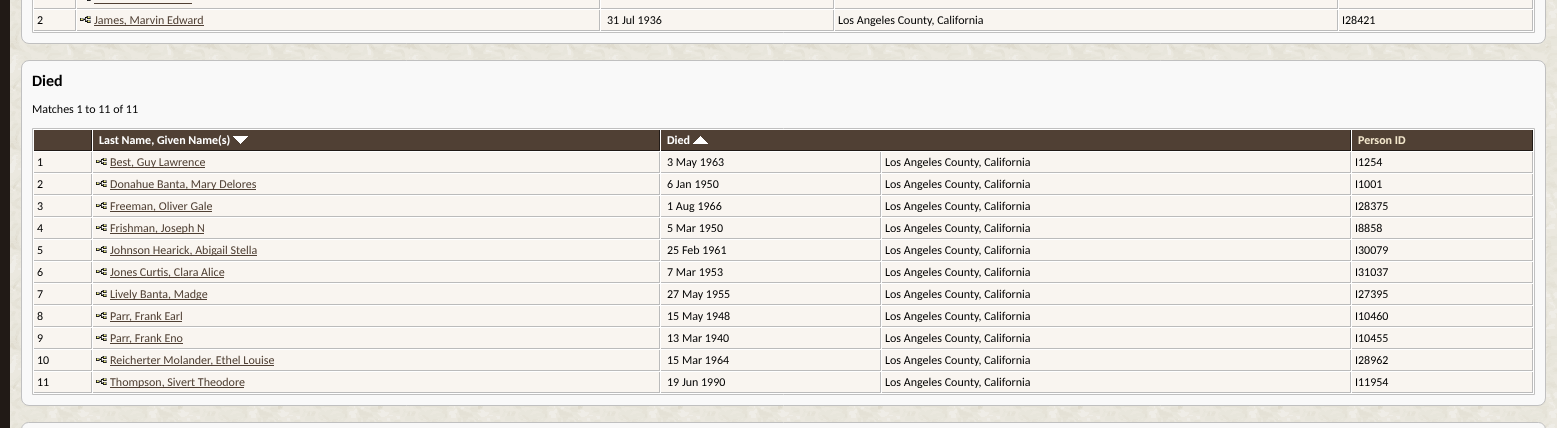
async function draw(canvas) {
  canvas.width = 1557;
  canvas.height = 428;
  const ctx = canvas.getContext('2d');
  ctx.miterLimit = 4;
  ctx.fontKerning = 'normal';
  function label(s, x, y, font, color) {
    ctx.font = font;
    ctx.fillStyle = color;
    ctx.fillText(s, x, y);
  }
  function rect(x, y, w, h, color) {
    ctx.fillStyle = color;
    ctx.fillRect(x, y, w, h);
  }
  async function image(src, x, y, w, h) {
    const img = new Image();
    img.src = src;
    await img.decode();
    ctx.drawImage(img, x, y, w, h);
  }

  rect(0, 0, 1557, 428, '#211a16');
  await image('assets/img1.png', 10, 0, 1547, 428);
  ctx.fillStyle = '#f9f9f9';
  ctx.beginPath();
  ctx.roundRect(21.5, -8.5, 1524, 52, 7.5);
  ctx.fill();
  ctx.strokeStyle = '#c0c0c0';
  ctx.stroke();
  ctx.fillStyle = '#fff';
  ctx.beginPath();
  ctx.rect(32.5, -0.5, 1502, 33);
  ctx.fill();
  ctx.stroke();
  rect(34, 0, 41, 8, '#f9f5f0');
  rect(75, 0, 1, 9, '#bbb');
  rect(34, 8, 42, 1, '#bbb');
  rect(77, 0, 522, 8, '#f9f5f0');
  rect(599, 0, 1, 9, '#bbb');
  rect(77, 8, 523, 1, '#bbb');
  await image('assets/img2.png', 87, 0, 4, 1);
  rect(94, 3, 98, 1, '#504034');
  rect(601, 0, 232, 8, '#f9f5f0');
  rect(833, 0, 1, 9, '#bbb');
  rect(601, 8, 233, 1, '#bbb');
  rect(835, 0, 502, 8, '#f9f5f0');
  rect(1337, 0, 1, 9, '#bbb');
  rect(835, 8, 503, 1, '#bbb');
  rect(1339, 0, 193, 8, '#f9f5f0');
  rect(1532, 0, 1, 9, '#bbb');
  rect(1339, 8, 194, 1, '#bbb');
  rect(34, 10, 41, 20, '#f9f5f0');
  rect(75, 10, 1, 21, '#bbb');
  rect(34, 30, 42, 1, '#bbb');
  label('2', 37, 24, '12px Carlito', '#000');
  rect(77, 10, 522, 20, '#f9f5f0');
  rect(599, 10, 1, 21, '#bbb');
  rect(77, 30, 523, 1, '#bbb');
  await image('assets/img3.png', 80, 16, 11, 7);
  rect(94, 25, 110, 1, '#504034');
  label('James, Marvin Edward', 94, 24, '12px Carlito', '#504034');
  rect(601, 10, 232, 20, '#f9f5f0');
  rect(833, 10, 1, 21, '#bbb');
  rect(601, 30, 233, 1, '#bbb');
  label('31 Jul 1936', 607, 24, '12px Carlito', '#000');
  rect(835, 10, 502, 20, '#f9f5f0');
  rect(1337, 10, 1, 21, '#bbb');
  rect(835, 30, 503, 1, '#bbb');
  label('Los Angeles County, California', 838, 24, '12px Carlito', '#000');
  rect(1339, 10, 193, 20, '#f9f5f0');
  rect(1532, 10, 1, 21, '#bbb');
  rect(1339, 30, 194, 1, '#bbb');
  label('I28421', 1342, 24, '12px Carlito', '#000');
  ctx.fillStyle = '#f9f9f9';
  ctx.beginPath();
  ctx.roundRect(21.5, 60.5, 1524, 345, 7.5);
  ctx.fill();
  ctx.stroke();
  label('Died', 32, 86, 'bold 16px Carlito', '#000');
  label('Matches 1 to 11 of 11', 32, 113, '12px Carlito', '#000');
  ctx.fillStyle = '#fff';
  ctx.beginPath();
  ctx.rect(32.5, 128.5, 1502, 266);
  ctx.fill();
  ctx.stroke();
  rect(34, 130, 57, 20, '#504034');
  rect(91, 130, 1, 21, '#211a16');
  rect(34, 150, 58, 1, '#211a16');
  rect(93, 130, 566, 20, '#504034');
  rect(659, 130, 1, 21, '#211a16');
  rect(93, 150, 567, 1, '#211a16');
  label('Last Name, Given Name(s)', 99, 144, 'bold 12px Carlito', '#fff');
  await image('assets/img4.png', 233, 136, 15, 8);
  rect(661, 130, 689, 20, '#504034');
  rect(1350, 130, 1, 21, '#211a16');
  rect(661, 150, 690, 1, '#211a16');
  label('Died', 667, 144, 'bold 12px Carlito', '#fff');
  await image('assets/img5.png', 693, 136, 15, 8);
  rect(1352, 130, 180, 20, '#504034');
  rect(1532, 130, 1, 21, '#211a16');
  rect(1352, 150, 181, 1, '#211a16');
  label('Person ID', 1358, 144, 'bold 12px Carlito', '#f2e6cc');
  rect(34, 152, 57, 20, '#f9f5f0');
  rect(91, 152, 1, 21, '#bbb');
  rect(34, 172, 58, 1, '#bbb');
  label('1', 37, 166, '12px Carlito', '#000');
  rect(93, 152, 566, 20, '#f9f5f0');
  rect(659, 152, 1, 21, '#bbb');
  rect(93, 172, 567, 1, '#bbb');
  await image('assets/img3.png', 96, 158, 11, 7);
  rect(110, 167, 95, 1, '#504034');
  label('Best, Guy Lawrence', 110, 166, '12px Carlito', '#504034');
  rect(661, 152, 219, 20, '#f9f5f0');
  rect(880, 152, 1, 21, '#bbb');
  rect(661, 172, 220, 1, '#bbb');
  label('3 May 1963', 667, 166, '12px Carlito', '#000');
  rect(882, 152, 468, 20, '#f9f5f0');
  rect(1350, 152, 1, 21, '#bbb');
  rect(882, 172, 469, 1, '#bbb');
  label('Los Angeles County, California', 885, 166, '12px Carlito', '#000');
  rect(1352, 152, 180, 20, '#f9f5f0');
  rect(1532, 152, 1, 21, '#bbb');
  rect(1352, 172, 181, 1, '#bbb');
  label('I1254', 1355, 166, '12px Carlito', '#000');
  rect(34, 174, 57, 20, '#f9f5f0');
  rect(91, 174, 1, 21, '#bbb');
  rect(34, 194, 58, 1, '#bbb');
  label('2', 37, 188, '12px Carlito', '#000');
  rect(93, 174, 566, 20, '#f9f5f0');
  rect(659, 174, 1, 21, '#bbb');
  rect(93, 194, 567, 1, '#bbb');
  await image('assets/img3.png', 96, 180, 11, 7);
  rect(110, 189, 146, 1, '#504034');
  label('Donahue Banta, Mary Delores', 110, 188, '12px Carlito', '#504034');
  rect(661, 174, 219, 20, '#f9f5f0');
  rect(880, 174, 1, 21, '#bbb');
  rect(661, 194, 220, 1, '#bbb');
  label('6 Jan 1950', 667, 188, '12px Carlito', '#000');
  rect(882, 174, 468, 20, '#f9f5f0');
  rect(1350, 174, 1, 21, '#bbb');
  rect(882, 194, 469, 1, '#bbb');
  label('Los Angeles County, California', 885, 188, '12px Carlito', '#000');
  rect(1352, 174, 180, 20, '#f9f5f0');
  rect(1532, 174, 1, 21, '#bbb');
  rect(1352, 194, 181, 1, '#bbb');
  label('I1001', 1355, 188, '12px Carlito', '#000');
  rect(34, 196, 57, 20, '#f9f5f0');
  rect(91, 196, 1, 21, '#bbb');
  rect(34, 216, 58, 1, '#bbb');
  label('3', 37, 210, '12px Carlito', '#000');
  rect(93, 196, 566, 20, '#f9f5f0');
  rect(659, 196, 1, 21, '#bbb');
  rect(93, 216, 567, 1, '#bbb');
  await image('assets/img3.png', 96, 202, 11, 7);
  rect(110, 211, 102, 1, '#504034');
  label('Freeman, Oliver Gale', 110, 210, '12px Carlito', '#504034');
  rect(661, 196, 219, 20, '#f9f5f0');
  rect(880, 196, 1, 21, '#bbb');
  rect(661, 216, 220, 1, '#bbb');
  label('1 Aug 1966', 667, 210, '12px Carlito', '#000');
  rect(882, 196, 468, 20, '#f9f5f0');
  rect(1350, 196, 1, 21, '#bbb');
  rect(882, 216, 469, 1, '#bbb');
  label('Los Angeles County, California', 885, 210, '12px Carlito', '#000');
  rect(1352, 196, 180, 20, '#f9f5f0');
  rect(1532, 196, 1, 21, '#bbb');
  rect(1352, 216, 181, 1, '#bbb');
  label('I28375', 1355, 210, '12px Carlito', '#000');
  rect(34, 218, 57, 20, '#f9f5f0');
  rect(91, 218, 1, 21, '#bbb');
  rect(34, 238, 58, 1, '#bbb');
  label('4', 37, 232, '12px Carlito', '#000');
  rect(93, 218, 566, 20, '#f9f5f0');
  rect(659, 218, 1, 21, '#bbb');
  rect(93, 238, 567, 1, '#bbb');
  await image('assets/img3.png', 96, 224, 11, 7);
  rect(110, 233, 94, 1, '#504034');
  label('Frishman, Joseph N', 110, 232, '12px Carlito', '#504034');
  rect(661, 218, 219, 20, '#f9f5f0');
  rect(880, 218, 1, 21, '#bbb');
  rect(661, 238, 220, 1, '#bbb');
  label('5 Mar 1950', 667, 232, '12px Carlito', '#000');
  rect(882, 218, 468, 20, '#f9f5f0');
  rect(1350, 218, 1, 21, '#bbb');
  rect(882, 238, 469, 1, '#bbb');
  label('Los Angeles County, California', 885, 232, '12px Carlito', '#000');
  rect(1352, 218, 180, 20, '#f9f5f0');
  rect(1532, 218, 1, 21, '#bbb');
  rect(1352, 238, 181, 1, '#bbb');
  label('I8858', 1355, 232, '12px Carlito', '#000');
  rect(34, 240, 57, 20, '#f9f5f0');
  rect(91, 240, 1, 21, '#bbb');
  rect(34, 260, 58, 1, '#bbb');
  label('5', 37, 254, '12px Carlito', '#000');
  rect(93, 240, 566, 20, '#f9f5f0');
  rect(659, 240, 1, 21, '#bbb');
  rect(93, 260, 567, 1, '#bbb');
  await image('assets/img3.png', 96, 246, 11, 7);
  rect(110, 255, 147, 1, '#504034');
  label('Johnson Hearick, Abigail Stella', 110, 254, '12px Carlito', '#504034');
  rect(661, 240, 219, 20, '#f9f5f0');
  rect(880, 240, 1, 21, '#bbb');
  rect(661, 260, 220, 1, '#bbb');
  label('25 Feb 1961', 667, 254, '12px Carlito', '#000');
  rect(882, 240, 468, 20, '#f9f5f0');
  rect(1350, 240, 1, 21, '#bbb');
  rect(882, 260, 469, 1, '#bbb');
  label('Los Angeles County, California', 885, 254, '12px Carlito', '#000');
  rect(1352, 240, 180, 20, '#f9f5f0');
  rect(1532, 240, 1, 21, '#bbb');
  rect(1352, 260, 181, 1, '#bbb');
  label('I30079', 1355, 254, '12px Carlito', '#000');
  rect(34, 262, 57, 20, '#f9f5f0');
  rect(91, 262, 1, 21, '#bbb');
  rect(34, 282, 58, 1, '#bbb');
  label('6', 37, 276, '12px Carlito', '#000');
  rect(93, 262, 566, 20, '#f9f5f0');
  rect(659, 262, 1, 21, '#bbb');
  rect(93, 282, 567, 1, '#bbb');
  await image('assets/img3.png', 96, 268, 11, 7);
  rect(110, 277, 114, 1, '#504034');
  label('Jones Curtis, Clara Alice', 110, 276, '12px Carlito', '#504034');
  rect(661, 262, 219, 20, '#f9f5f0');
  rect(880, 262, 1, 21, '#bbb');
  rect(661, 282, 220, 1, '#bbb');
  label('7 Mar 1953', 667, 276, '12px Carlito', '#000');
  rect(882, 262, 468, 20, '#f9f5f0');
  rect(1350, 262, 1, 21, '#bbb');
  rect(882, 282, 469, 1, '#bbb');
  label('Los Angeles County, California', 885, 276, '12px Carlito', '#000');
  rect(1352, 262, 180, 20, '#f9f5f0');
  rect(1532, 262, 1, 21, '#bbb');
  rect(1352, 282, 181, 1, '#bbb');
  label('I31037', 1355, 276, '12px Carlito', '#000');
  rect(34, 284, 57, 20, '#f9f5f0');
  rect(91, 284, 1, 21, '#bbb');
  rect(34, 304, 58, 1, '#bbb');
  label('7', 37, 298, '12px Carlito', '#000');
  rect(93, 284, 566, 20, '#f9f5f0');
  rect(659, 284, 1, 21, '#bbb');
  rect(93, 304, 567, 1, '#bbb');
  await image('assets/img3.png', 96, 290, 11, 7);
  rect(110, 299, 97, 1, '#504034');
  label('Lively Banta, Madge', 110, 298, '12px Carlito', '#504034');
  rect(661, 284, 219, 20, '#f9f5f0');
  rect(880, 284, 1, 21, '#bbb');
  rect(661, 304, 220, 1, '#bbb');
  label('27 May 1955', 667, 298, '12px Carlito', '#000');
  rect(882, 284, 468, 20, '#f9f5f0');
  rect(1350, 284, 1, 21, '#bbb');
  rect(882, 304, 469, 1, '#bbb');
  label('Los Angeles County, California', 885, 298, '12px Carlito', '#000');
  rect(1352, 284, 180, 20, '#f9f5f0');
  rect(1532, 284, 1, 21, '#bbb');
  rect(1352, 304, 181, 1, '#bbb');
  label('I27395', 1355, 298, '12px Carlito', '#000');
  rect(34, 306, 57, 20, '#f9f5f0');
  rect(91, 306, 1, 21, '#bbb');
  rect(34, 326, 58, 1, '#bbb');
  label('8', 37, 320, '12px Carlito', '#000');
  rect(93, 306, 566, 20, '#f9f5f0');
  rect(659, 306, 1, 21, '#bbb');
  rect(93, 326, 567, 1, '#bbb');
  await image('assets/img3.png', 96, 312, 11, 7);
  rect(110, 321, 72, 1, '#504034');
  label('Parr, Frank Earl', 110, 320, '12px Carlito', '#504034');
  rect(661, 306, 219, 20, '#f9f5f0');
  rect(880, 306, 1, 21, '#bbb');
  rect(661, 326, 220, 1, '#bbb');
  label('15 May 1948', 667, 320, '12px Carlito', '#000');
  rect(882, 306, 468, 20, '#f9f5f0');
  rect(1350, 306, 1, 21, '#bbb');
  rect(882, 326, 469, 1, '#bbb');
  label('Los Angeles County, California', 885, 320, '12px Carlito', '#000');
  rect(1352, 306, 180, 20, '#f9f5f0');
  rect(1532, 306, 1, 21, '#bbb');
  rect(1352, 326, 181, 1, '#bbb');
  label('I10460', 1355, 320, '12px Carlito', '#000');
  rect(34, 328, 57, 20, '#f9f5f0');
  rect(91, 328, 1, 21, '#bbb');
  rect(34, 348, 58, 1, '#bbb');
  label('9', 37, 342, '12px Carlito', '#000');
  rect(93, 328, 566, 20, '#f9f5f0');
  rect(659, 328, 1, 21, '#bbb');
  rect(93, 348, 567, 1, '#bbb');
  await image('assets/img3.png', 96, 334, 11, 7);
  rect(110, 343, 73, 1, '#504034');
  label('Parr, Frank Eno', 110, 342, '12px Carlito', '#504034');
  rect(661, 328, 219, 20, '#f9f5f0');
  rect(880, 328, 1, 21, '#bbb');
  rect(661, 348, 220, 1, '#bbb');
  label('13 Mar 1940', 667, 342, '12px Carlito', '#000');
  rect(882, 328, 468, 20, '#f9f5f0');
  rect(1350, 328, 1, 21, '#bbb');
  rect(882, 348, 469, 1, '#bbb');
  label('Los Angeles County, California', 885, 342, '12px Carlito', '#000');
  rect(1352, 328, 180, 20, '#f9f5f0');
  rect(1532, 328, 1, 21, '#bbb');
  rect(1352, 348, 181, 1, '#bbb');
  label('I10455', 1355, 342, '12px Carlito', '#000');
  rect(34, 350, 57, 20, '#f9f5f0');
  rect(91, 350, 1, 21, '#bbb');
  rect(34, 370, 58, 1, '#bbb');
  label('10', 37, 364, '12px Carlito', '#000');
  rect(93, 350, 566, 20, '#f9f5f0');
  rect(659, 350, 1, 21, '#bbb');
  rect(93, 370, 567, 1, '#bbb');
  await image('assets/img3.png', 96, 356, 11, 7);
  rect(110, 365, 164, 1, '#504034');
  label('Reicherter Molander, Ethel Louise', 110, 364, '12px Carlito', '#504034');
  rect(661, 350, 219, 20, '#f9f5f0');
  rect(880, 350, 1, 21, '#bbb');
  rect(661, 370, 220, 1, '#bbb');
  label('15 Mar 1964', 667, 364, '12px Carlito', '#000');
  rect(882, 350, 468, 20, '#f9f5f0');
  rect(1350, 350, 1, 21, '#bbb');
  rect(882, 370, 469, 1, '#bbb');
  label('Los Angeles County, California', 885, 364, '12px Carlito', '#000');
  rect(1352, 350, 180, 20, '#f9f5f0');
  rect(1532, 350, 1, 21, '#bbb');
  rect(1352, 370, 181, 1, '#bbb');
  label('I28962', 1355, 364, '12px Carlito', '#000');
  rect(34, 372, 57, 20, '#f9f5f0');
  rect(91, 372, 1, 21, '#bbb');
  rect(34, 392, 58, 1, '#bbb');
  label('11', 37, 386, '12px Carlito', '#000');
  rect(93, 372, 566, 20, '#f9f5f0');
  rect(659, 372, 1, 21, '#bbb');
  rect(93, 392, 567, 1, '#bbb');
  await image('assets/img3.png', 96, 378, 11, 7);
  rect(110, 387, 134, 1, '#504034');
  label('Thompson, Sivert Theodore', 110, 386, '12px Carlito', '#504034');
  rect(661, 372, 219, 20, '#f9f5f0');
  rect(880, 372, 1, 21, '#bbb');
  rect(661, 392, 220, 1, '#bbb');
  label('19 Jun 1990', 667, 386, '12px Carlito', '#000');
  rect(882, 372, 468, 20, '#f9f5f0');
  rect(1350, 372, 1, 21, '#bbb');
  rect(882, 392, 469, 1, '#bbb');
  label('Los Angeles County, California', 885, 386, '12px Carlito', '#000');
  rect(1352, 372, 180, 20, '#f9f5f0');
  rect(1532, 372, 1, 21, '#bbb');
  rect(1352, 392, 181, 1, '#bbb');
  label('I11954', 1355, 386, '12px Carlito', '#000');
  ctx.fillStyle = '#f9f9f9';
  ctx.beginPath();
  ctx.roundRect(21.5, 422.5, 1524, 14, 7.5);
  ctx.fill();
  ctx.stroke();
}

draw(document.querySelector('canvas'));
